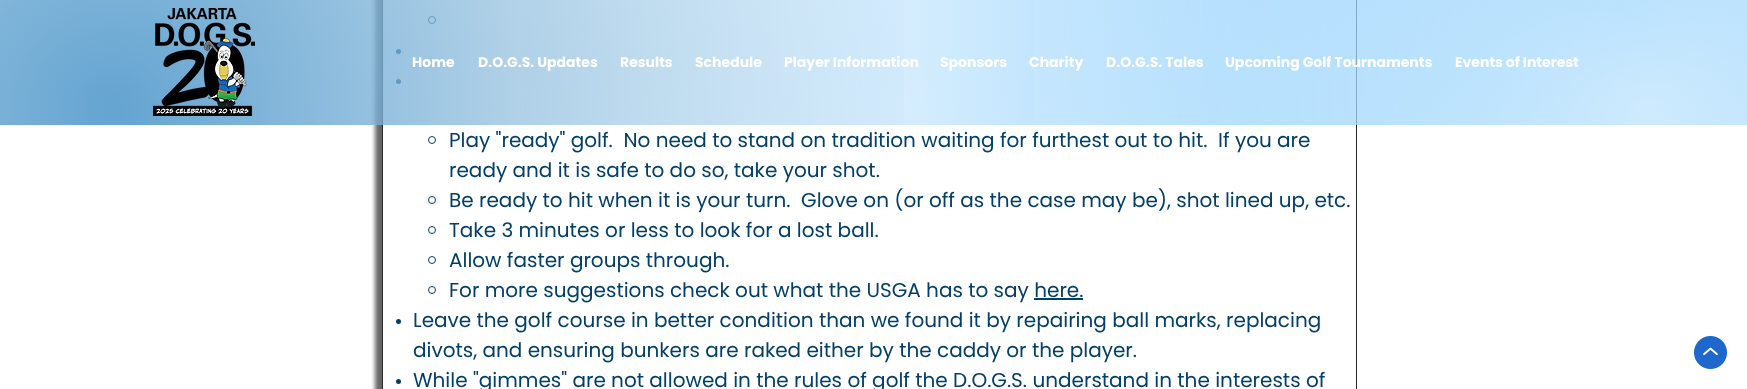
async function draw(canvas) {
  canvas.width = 1747;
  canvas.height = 389;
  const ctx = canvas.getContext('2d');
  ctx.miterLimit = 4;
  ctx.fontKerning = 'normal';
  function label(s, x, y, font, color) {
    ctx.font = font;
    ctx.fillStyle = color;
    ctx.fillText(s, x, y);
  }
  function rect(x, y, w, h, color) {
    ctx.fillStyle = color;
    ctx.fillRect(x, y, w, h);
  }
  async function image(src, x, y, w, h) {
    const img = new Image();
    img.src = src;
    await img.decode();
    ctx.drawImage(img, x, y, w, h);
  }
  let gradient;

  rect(0, 0, 1747, 389, '#fff');
  ctx.save();
  ctx.beginPath();
  ctx.rect(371, 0, 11, 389);
  ctx.clip();
  ctx.fillStyle = '#00000099';
  ctx.filter = 'blur(2px)';
  ctx.beginPath();
  ctx.roundRect(375, -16, 975, 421, 10);
  ctx.fill();
  ctx.filter = 'none';
  ctx.restore();
  ctx.strokeStyle = '#292723';
  ctx.strokeRect(382.5, -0.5, 974, 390);
  ctx.beginPath();
  ctx.arc(432, 20, 3.5, 0, 2 * Math.PI);
  ctx.strokeStyle = '#023f69';
  ctx.stroke();
  ctx.fillStyle = '#023f69';
  ctx.beginPath();
  ctx.arc(398.5, 51.5, 2.5, 0, 2 * Math.PI);
  ctx.fill();
  ctx.beginPath();
  ctx.arc(398.5, 81.5, 2.5, 0, 2 * Math.PI);
  ctx.fill();
  gradient = ctx.createRadialGradient(854, 62, 0, 854, 62, 895);
  gradient.addColorStop(0, '#ffffffa1');
  gradient.addColorStop(1, '#ffffff00');
  ctx.fillStyle = gradient;
  ctx.fillRect(372, 0, 985, 125);
  gradient = ctx.createRadialGradient(1629, 19, 0, 1629, 19, 1632);
  gradient.addColorStop(0, '#1b9ffaa1');
  gradient.addColorStop(0.7, '#1b9ffa00');
  ctx.fillStyle = gradient;
  ctx.fillRect(524, 0, 1223, 125);
  gradient = ctx.createRadialGradient(108, 16, 0, 108, 16, 1643);
  gradient.addColorStop(0, '#ffffffa1');
  gradient.addColorStop(0.7, '#ffffff00');
  ctx.fillStyle = gradient;
  ctx.fillRect(372, 0, 831, 125);
  gradient = ctx.createRadialGradient(114, 110, 0, 114, 110, 1637);
  gradient.addColorStop(0, '#046cb49e');
  gradient.addColorStop(0.5, '#046cb400');
  ctx.fillStyle = gradient;
  ctx.fillRect(0, 0, 904, 125);
  gradient = ctx.createRadialGradient(1648, 112, 0, 1648, 112, 1652);
  gradient.addColorStop(0, '#ffffffa1');
  gradient.addColorStop(0.4, '#ffffff00');
  ctx.fillStyle = gradient;
  ctx.fillRect(1034, 0, 713, 125);
  await image('assets/img1.png', 153, 8, 102, 108);
  label('Home', 412, 67, 'bold 14px Poppins', '#fff');
  label('D.O.G.S. Updates', 478, 67, 'bold 14px Poppins', '#fff');
  label('Results', 620, 67, 'bold 14px Poppins', '#fff');
  label('Schedule', 695, 67, 'bold 14px Poppins', '#fff');
  label('Player Information', 784, 67, 'bold 14px Poppins', '#fff');
  label('Sponsors', 940, 67, 'bold 14px Poppins', '#fff');
  label('Charity', 1029, 67, 'bold 14px Poppins', '#fff');
  label('D.O.G.S. Tales', 1106, 67, 'bold 14px Poppins', '#fff');
  label('Upcoming Golf Tournaments', 1225, 67, 'bold 14px Poppins', '#fff');
  label('Events of Interest', 1455, 67, 'bold 14px Poppins', '#fff');
  ctx.beginPath();
  ctx.arc(432, 140, 3.5, 0, 2 * Math.PI);
  ctx.stroke();
  label('Play "ready" golf.  No need to stand on tradition waiting for furthest out to hit.  If you are', 449, 147, '20px Poppins', '#023f69');
  label('ready and it is safe to do so, take your shot.', 449, 177, '20px Poppins', '#023f69');
  ctx.beginPath();
  ctx.arc(432, 200, 3.5, 0, 2 * Math.PI);
  ctx.stroke();
  label('Be ready to hit when it is your turn.  Glove on (or off as the case may be), shot lined up, etc.', 449, 207, '20px Poppins', '#023f69');
  ctx.beginPath();
  ctx.arc(432, 230, 3.5, 0, 2 * Math.PI);
  ctx.stroke();
  label('Take 3 minutes or less to look for a lost ball.', 449, 237, '20px Poppins', '#023f69');
  ctx.beginPath();
  ctx.arc(432, 260, 3.5, 0, 2 * Math.PI);
  ctx.stroke();
  label('Allow faster groups through.', 449, 267, '20px Poppins', '#023f69');
  ctx.beginPath();
  ctx.arc(432, 290, 3.5, 0, 2 * Math.PI);
  ctx.stroke();
  label('For more suggestions check out what the USGA has to say here.', 449, 297, '20px Poppins', '#023f69');
  rect(1034, 298, 49, 2, '#023f69');
  ctx.beginPath();
  ctx.arc(398.5, 321.5, 2.5, 0, 2 * Math.PI);
  ctx.fill();
  label('Leave the golf course in better condition than we found it by repairing ball marks, replacing', 413, 327, '20px Poppins', '#023f69');
  label('divots, and ensuring bunkers are raked either by the caddy or the player.', 413, 357, '20px Poppins', '#023f69');
  ctx.beginPath();
  ctx.arc(398.5, 381.5, 2.5, 0, 2 * Math.PI);
  ctx.fill();
  label('While "gimmes" are not allowed in the rules of golf the D.O.G.S. understand in the interests of', 413, 387, '20px Poppins', '#023f69');
  await image('assets/img2.png', 1694, 336, 33, 33);
}

draw(document.querySelector('canvas'));
